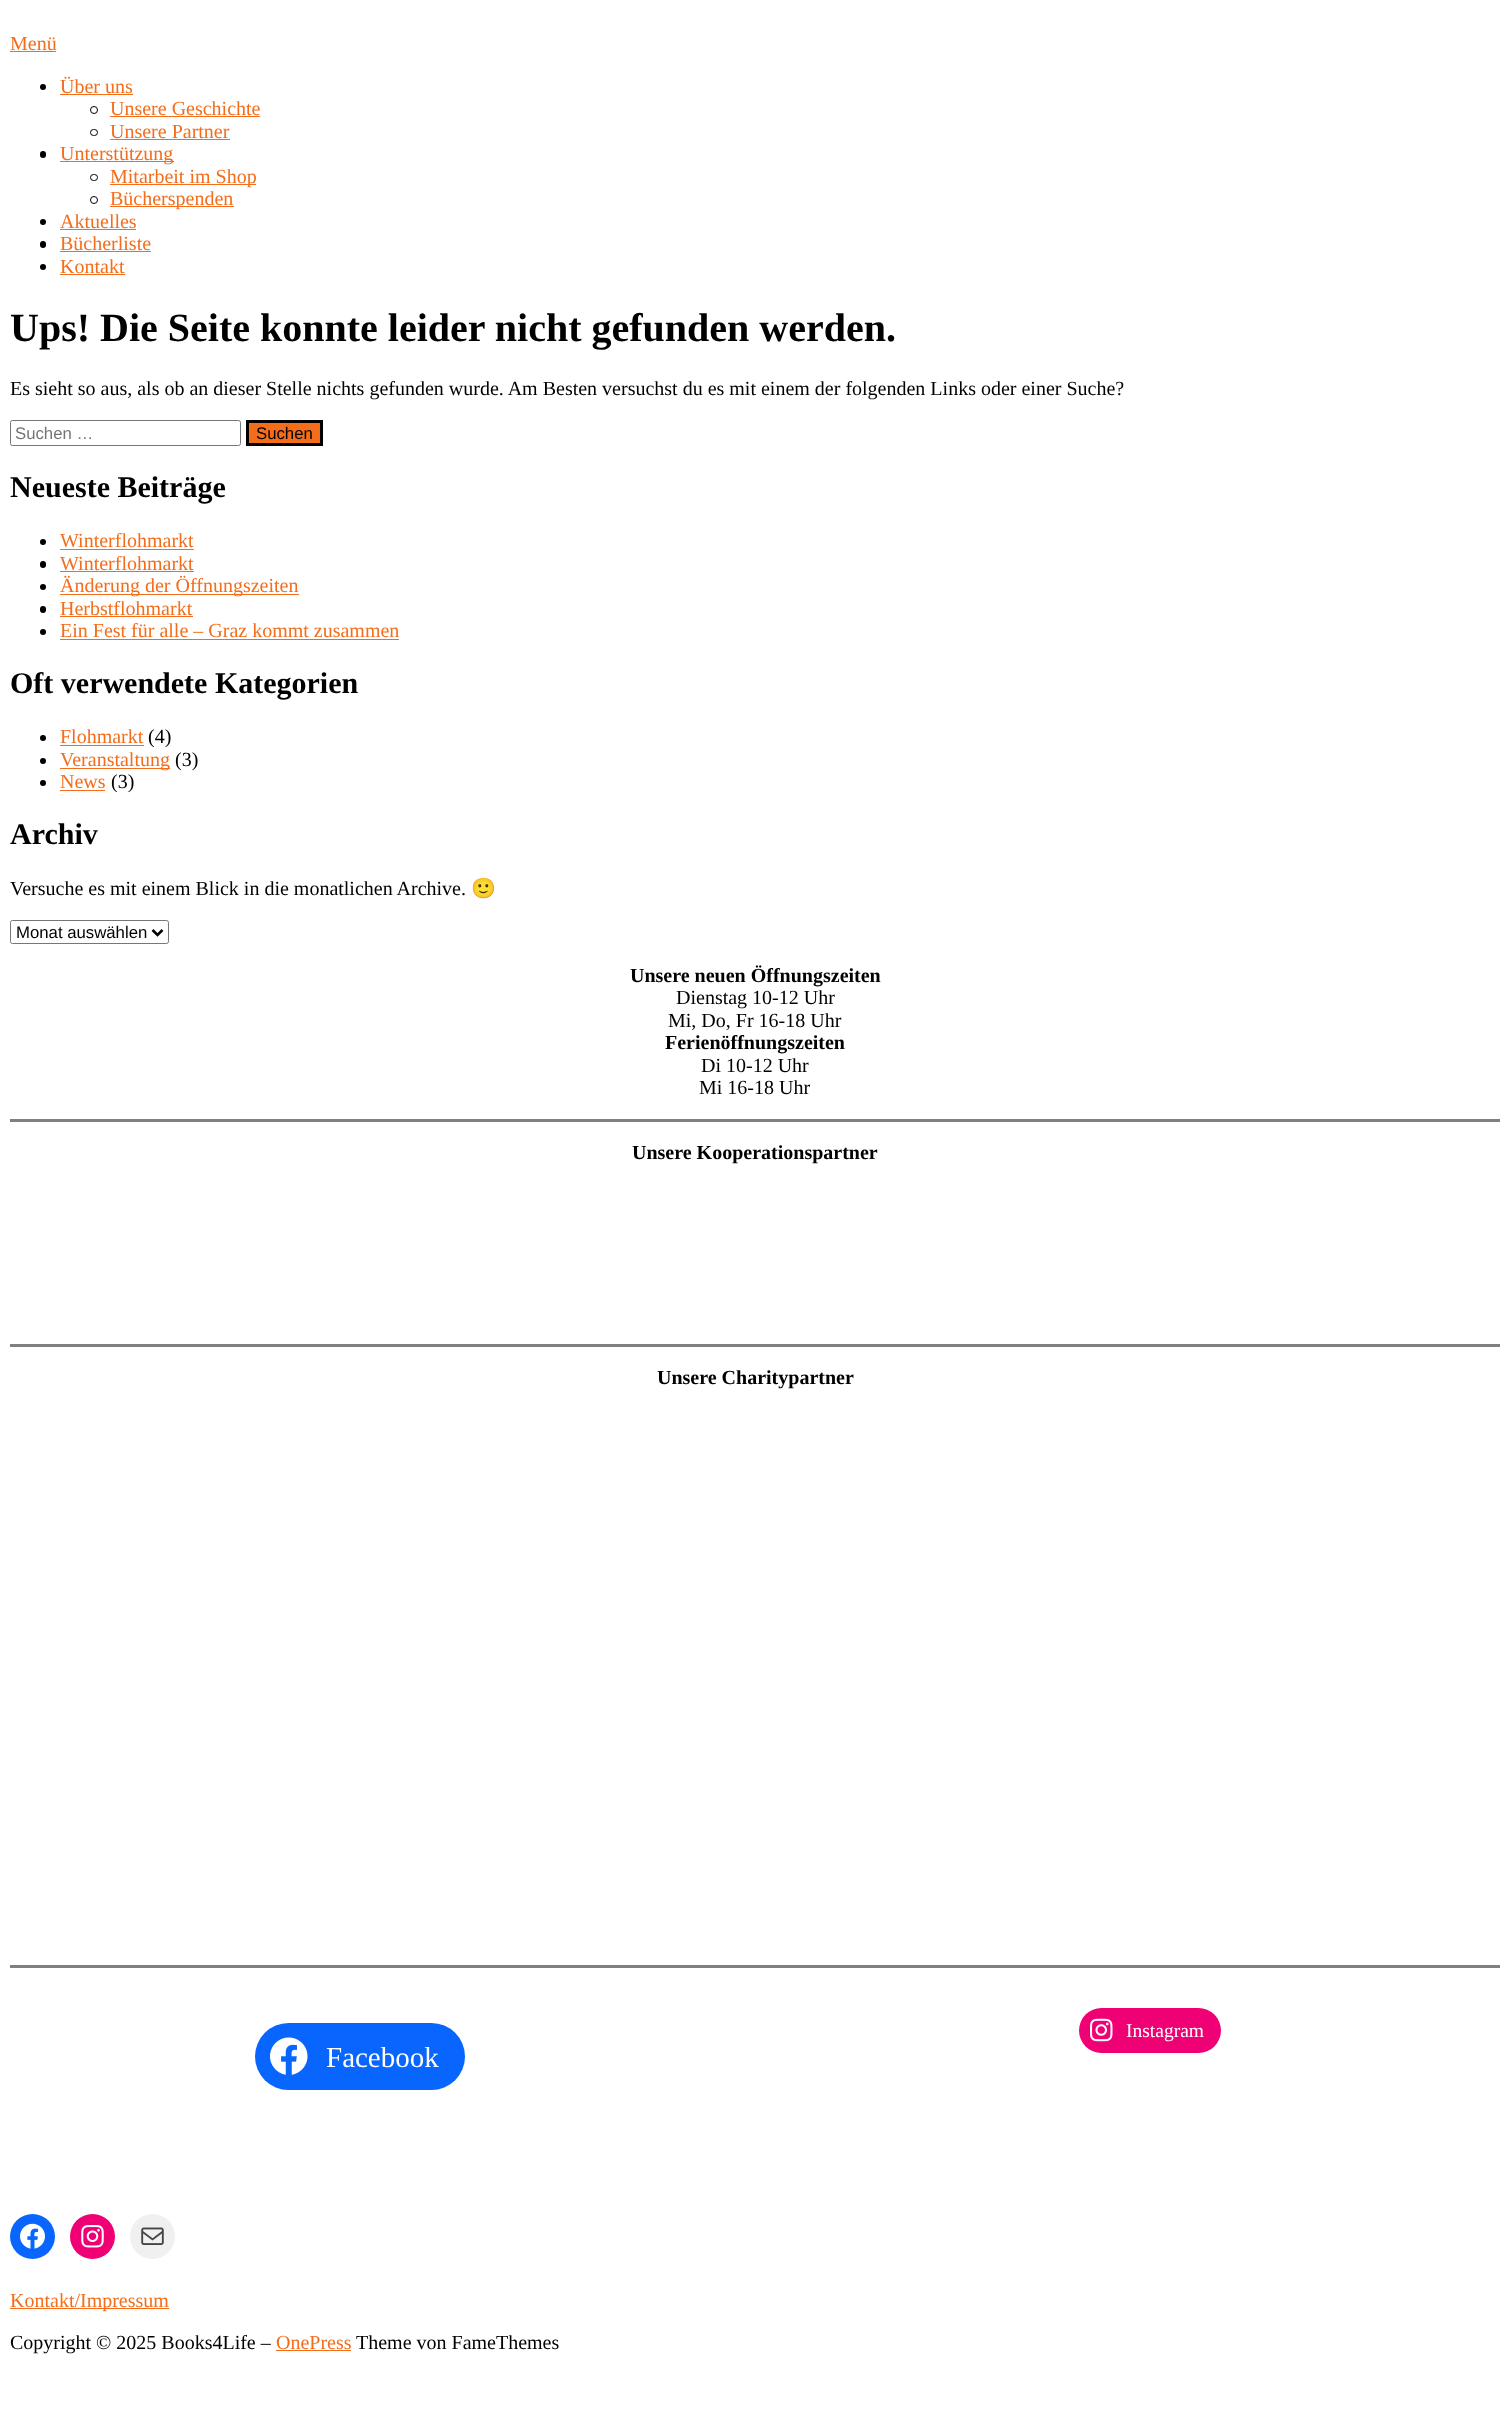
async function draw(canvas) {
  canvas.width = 1509;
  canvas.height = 2427;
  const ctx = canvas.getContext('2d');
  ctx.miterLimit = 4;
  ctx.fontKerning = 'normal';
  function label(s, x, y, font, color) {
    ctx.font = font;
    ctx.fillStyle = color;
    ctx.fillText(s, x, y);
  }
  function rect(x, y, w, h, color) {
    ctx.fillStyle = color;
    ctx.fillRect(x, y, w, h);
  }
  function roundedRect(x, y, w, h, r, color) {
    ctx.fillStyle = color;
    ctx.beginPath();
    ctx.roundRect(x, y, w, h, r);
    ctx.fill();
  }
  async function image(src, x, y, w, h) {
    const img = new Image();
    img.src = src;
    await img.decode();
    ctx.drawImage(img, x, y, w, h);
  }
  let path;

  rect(0, 0, 1509, 2427, '#fff');
  label('Menü', 10, 50, '20px Liberation Serif', '#f46d1b');
  rect(10, 51, 46, 1, '#f46d1b');
  ctx.fillStyle = '#000';
  ctx.beginPath();
  ctx.arc(43, 87, 3, 0, 2 * Math.PI);
  ctx.fill();
  label('Über uns', 60, 93, '20px Liberation Serif', '#f46d1b');
  rect(60, 94, 73, 1, '#f46d1b');
  ctx.beginPath();
  ctx.arc(94, 110, 3.5, 0, 2 * Math.PI);
  ctx.strokeStyle = '#000';
  ctx.stroke();
  label('Unsere Geschichte', 110, 115, '20px Liberation Serif', '#f46d1b');
  rect(110, 116, 150, 1, '#f46d1b');
  ctx.beginPath();
  ctx.roundRect(90.5, 129.5, 7, 6, 3);
  ctx.stroke();
  label('Unsere Partner', 110, 138, '20px Liberation Serif', '#f46d1b');
  rect(110, 139, 120, 1, '#f46d1b');
  roundedRect(40, 151, 6, 7, 3, '#000');
  rect(60, 161, 114, 1, '#f46d1b');
  label('Unterstützung', 60, 160, '20px Liberation Serif', '#f46d1b');
  ctx.beginPath();
  ctx.roundRect(90.5, 174.5, 7, 6, 3);
  ctx.stroke();
  rect(110, 184, 146, 1, '#f46d1b');
  label('Mitarbeit im Shop', 110, 183, '20px Liberation Serif', '#f46d1b');
  ctx.beginPath();
  ctx.arc(94, 200, 3.5, 0, 2 * Math.PI);
  ctx.stroke();
  rect(110, 206, 124, 1, '#f46d1b');
  label('Bücherspenden', 110, 205, '20px Liberation Serif', '#f46d1b');
  ctx.fillStyle = '#000';
  ctx.beginPath();
  ctx.arc(43, 222, 3, 0, 2 * Math.PI);
  ctx.fill();
  label('Aktuelles', 60, 228, '20px Liberation Serif', '#f46d1b');
  rect(60, 229, 76, 1, '#f46d1b');
  roundedRect(40, 241, 6, 7, 3, '#000');
  label('Bücherliste', 60, 250, '20px Liberation Serif', '#f46d1b');
  rect(60, 251, 91, 1, '#f46d1b');
  ctx.fillStyle = '#000';
  ctx.beginPath();
  ctx.arc(43, 267, 3, 0, 2 * Math.PI);
  ctx.fill();
  label('Kontakt', 60, 273, '20px Liberation Serif', '#f46d1b');
  rect(60, 274, 65, 1, '#f46d1b');
  label('Ups! Die Seite konnte leider nicht gefunden werden.', 10, 341, 'bold 40px Liberation Serif', '#000');
  label('Es sieht so aus, als ob an dieser Stelle nichts gefunden wurde. Am Besten versuchst du es mit einem der folgenden Links oder einer Suche?', 10, 395, '20px Liberation Serif', '#000');
  ctx.beginPath();
  ctx.roundRect(10.5, 420.5, 230, 25, 2);
  ctx.strokeStyle = '#767676';
  ctx.stroke();
  label('Suchen …', 15, 439, '16.75px Liberation Sans', '#757575');
  ctx.fillStyle = '#f46d1b';
  ctx.beginPath();
  ctx.rect(247.5, 421.5, 74, 23);
  ctx.fill();
  ctx.strokeStyle = '#000';
  ctx.lineWidth = 3;
  ctx.stroke();
  label('Suchen', 256, 439, '16.75px Liberation Sans', '#000');
  label('Neueste Beiträge', 10, 497, 'bold 30px Liberation Serif', '#000');
  ctx.beginPath();
  ctx.arc(43, 542, 3, 0, 2 * Math.PI);
  ctx.fill();
  label('Winterflohmarkt', 60, 547, '20px Liberation Serif', '#f46d1b');
  rect(60, 549, 134, 1, '#f46d1b');
  roundedRect(40, 561, 6, 7, 3, '#000');
  label('Winterflohmarkt', 60, 570, '20px Liberation Serif', '#f46d1b');
  rect(60, 571, 134, 1, '#f46d1b');
  ctx.fillStyle = '#000';
  ctx.beginPath();
  ctx.arc(43, 587, 3, 0, 2 * Math.PI);
  ctx.fill();
  rect(60, 594, 239, 1, '#f46d1b');
  label('Änderung der Öffnungszeiten', 60, 592, '20px Liberation Serif', '#f46d1b');
  roundedRect(40, 606, 6, 7, 3, '#000');
  label('Herbstflohmarkt', 60, 615, '20px Liberation Serif', '#f46d1b');
  rect(60, 616, 133, 1, '#f46d1b');
  ctx.fillStyle = '#000';
  ctx.beginPath();
  ctx.arc(43, 632, 3, 0, 2 * Math.PI);
  ctx.fill();
  label('Ein Fest für alle – Graz kommt zusammen', 60, 637, '20px Liberation Serif', '#f46d1b');
  rect(60, 639, 339, 1, '#f46d1b');
  label('Oft verwendete Kategorien', 10, 693, 'bold 30px Liberation Serif', '#000');
  ctx.beginPath();
  ctx.arc(43, 738, 3, 0, 2 * Math.PI);
  ctx.fill();
  label('Flohmarkt', 60, 743, '20px Liberation Serif', '#f46d1b');
  rect(60, 745, 84, 1, '#f46d1b');
  label('(4)', 148, 743, '20px Liberation Serif', '#000');
  ctx.beginPath();
  ctx.arc(43, 761, 3, 0, 2 * Math.PI);
  ctx.fill();
  rect(60, 768, 110, 1, '#f46d1b');
  label('Veranstaltung', 60, 766, '20px Liberation Serif', '#f46d1b');
  label('(3)', 175, 766, '20px Liberation Serif', '#000');
  ctx.beginPath();
  ctx.arc(43, 783, 3, 0, 2 * Math.PI);
  ctx.fill();
  label('News', 60, 788, '20px Liberation Serif', '#f46d1b');
  rect(60, 790, 45, 1, '#f46d1b');
  label('(3)', 111, 788, '20px Liberation Serif', '#000');
  label('Archiv', 10, 844, 'bold 30px Liberation Serif', '#000');
  label('Versuche es mit einem Blick in die monatlichen Archive.', 10, 895, '20px Liberation Serif', '#000');
  label('🙂', 471, 895, '20px Noto Color Emoji', '#000');
  ctx.beginPath();
  ctx.roundRect(10.5, 920.5, 158, 23, 2);
  ctx.strokeStyle = '#767676';
  ctx.lineWidth = 1;
  ctx.stroke();
  path = new Path2D('M152.5 930L157.5 935L162.5 930');
  ctx.strokeStyle = '#000';
  ctx.lineWidth = 2.5;
  ctx.stroke(path);
  label('Monat auswählen', 16, 938, '16.75px Liberation Sans', '#000');
  label('Unsere neuen Öffnungszeiten', 630, 982, 'bold 20px Liberation Serif', '#000');
  label('Dienstag 10-12 Uhr', 676, 1004, '20px Liberation Serif', '#000');
  label('Mi, Do, Fr 16-18 Uhr', 668, 1027, '20px Liberation Serif', '#000');
  label('Ferienöffnungszeiten', 665, 1049, 'bold 20px Liberation Serif', '#000');
  label('Di 10-12 Uhr', 701, 1072, '20px Liberation Serif', '#000');
  label('Mi 16-18 Uhr', 699, 1094, '20px Liberation Serif', '#000');
  rect(10, 1119, 1490, 3, '#808080');
  label('Unsere Kooperationspartner', 632, 1159, 'bold 20px Liberation Serif', '#000');
  rect(10, 1344, 1490, 3, '#808080');
  label('Unsere Charitypartner', 657, 1384, 'bold 20px Liberation Serif', '#000');
  rect(10, 1965, 1490, 3, '#808080');
  roundedRect(1079, 2008, 142, 45, 22.5, '#f00075');
  await image('assets/img1.png', 1090, 2018, 23, 24);
  label('Instagram', 1126, 2037, '19.5px Liberation Serif', '#fff');
  roundedRect(255, 2023, 210, 67, 33.5, '#0866ff');
  await image('assets/img2.png', 270, 2037, 38, 38);
  label('Facebook', 326, 2067, '29px Liberation Serif', '#fff');
  ctx.fillStyle = '#0866ff';
  ctx.beginPath();
  ctx.arc(32.5, 2236.5, 22.5, 0, 2 * Math.PI);
  ctx.fill();
  await image('assets/img3.png', 20, 2223, 25, 26);
  ctx.fillStyle = '#f00075';
  ctx.beginPath();
  ctx.arc(92.5, 2236.5, 22.5, 0, 2 * Math.PI);
  ctx.fill();
  await image('assets/img4.png', 81, 2225, 23, 23);
  ctx.fillStyle = '#f0f0f0';
  ctx.beginPath();
  ctx.arc(152.5, 2236.5, 22.5, 0, 2 * Math.PI);
  ctx.fill();
  await image('assets/img5.png', 141, 2227, 23, 18);
  rect(10, 2308, 159, 1, '#f46d1b');
  label('Kontakt/Impressum', 10, 2307, '20px Liberation Serif', '#f46d1b');
  label('Copyright © 2025 Books4Life –', 10, 2349, '20px Liberation Serif', '#000');
  label('OnePress', 276, 2349, '20px Liberation Serif', '#f46d1b');
  rect(276, 2350, 75, 1, '#f46d1b');
  label('Theme von FameThemes', 356, 2349, '20px Liberation Serif', '#000');
}

draw(document.querySelector('canvas'));
